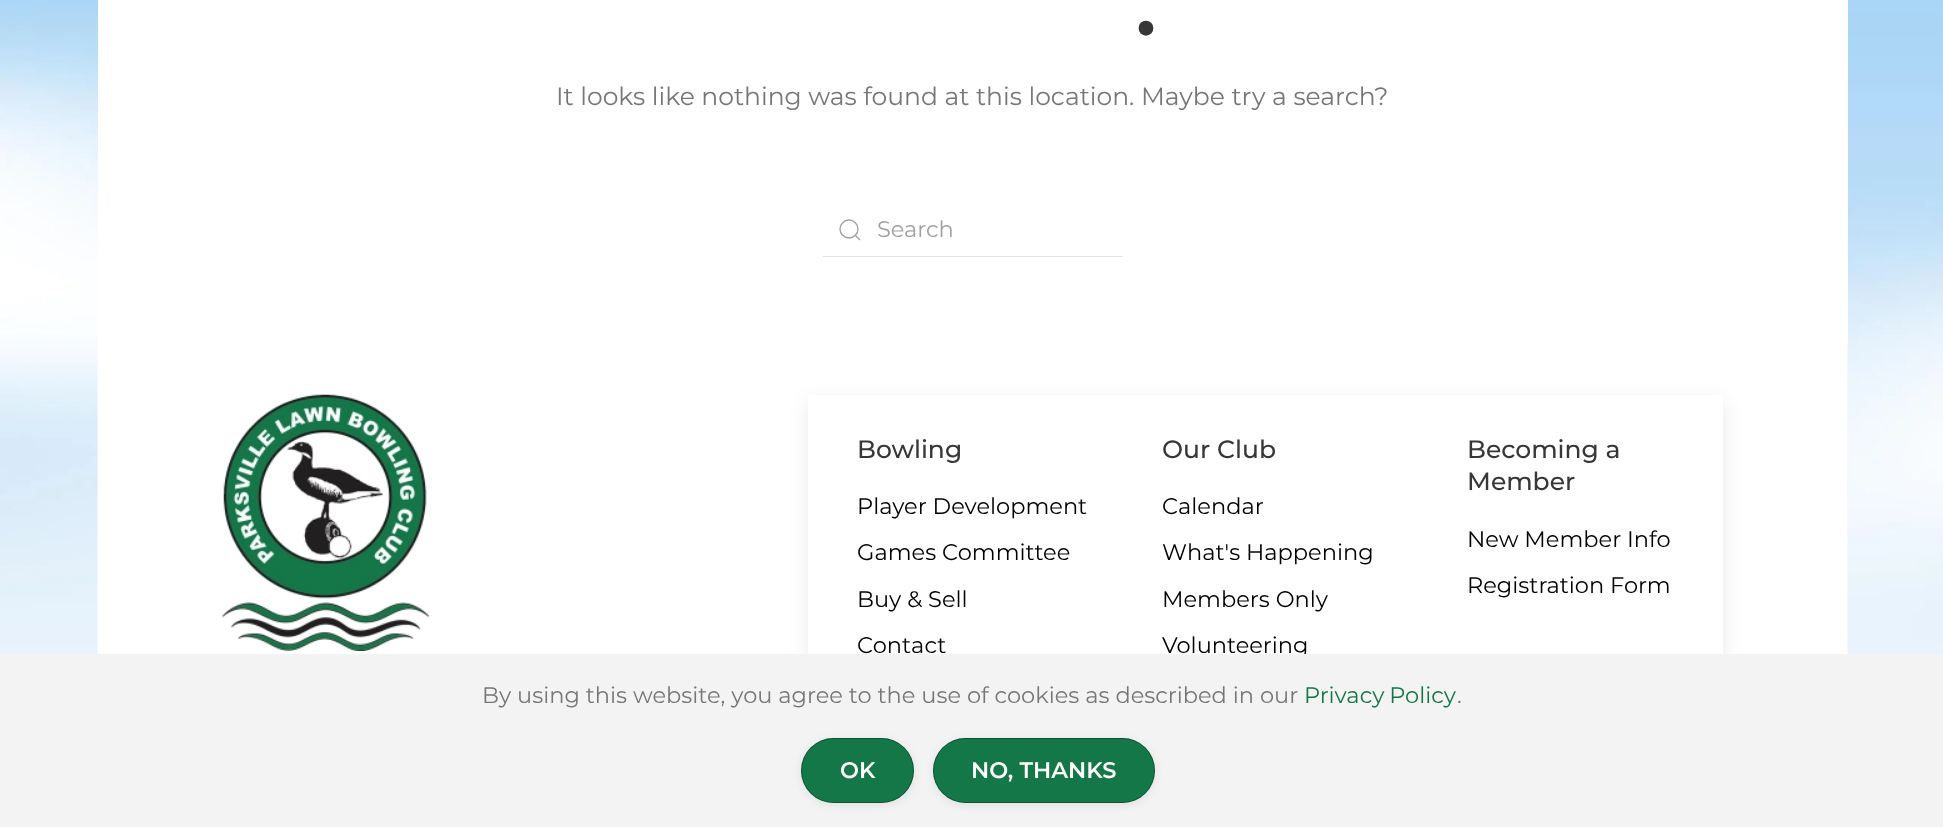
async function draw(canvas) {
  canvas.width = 1943;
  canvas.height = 827;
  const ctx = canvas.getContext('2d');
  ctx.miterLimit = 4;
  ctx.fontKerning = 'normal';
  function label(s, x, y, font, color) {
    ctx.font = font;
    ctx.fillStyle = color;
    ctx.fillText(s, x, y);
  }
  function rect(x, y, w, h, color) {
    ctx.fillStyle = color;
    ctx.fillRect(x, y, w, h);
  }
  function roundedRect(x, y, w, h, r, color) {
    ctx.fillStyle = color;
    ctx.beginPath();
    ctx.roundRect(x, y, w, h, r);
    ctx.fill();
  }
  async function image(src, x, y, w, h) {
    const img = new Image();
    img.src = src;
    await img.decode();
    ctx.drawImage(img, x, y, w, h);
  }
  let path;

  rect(0, 0, 1943, 827, '#fff');
  await image('assets/img1.png', 0, 0, 1943, 654);
  rect(98, 0, 1750, 345, '#fff');
  label('.', 1135, 35, '100 90px Montserrat', '#373737');
  label('It looks like nothing was found at this location. Maybe try a search?', 556, 105, '100 25px "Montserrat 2"', '#777');
  ctx.beginPath();
  ctx.arc(849, 229, 9, 0, 2 * Math.PI);
  ctx.strokeStyle = '#a1a1a1';
  ctx.lineWidth = 1.4;
  ctx.stroke();
  path = new Path2D('M855 235L860 240Z');
  ctx.stroke(path);
  rect(823, 256, 300, 1, '#e2e2e2');
  label('Search', 877, 237, '100 22.5px "Montserrat 2"', '#a1a1a1');
  rect(1847, 345, 1, 309, '#f3f3f3');
  await image('assets/img2.png', 97, 345, 1751, 309);
  await image('assets/img3.png', 222, 394, 207, 257);
  ctx.fillStyle = '#00000014';
  ctx.filter = 'blur(9.5px)';
  ctx.beginPath();
  ctx.rect(808, 401, 915, 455);
  ctx.fill();
  ctx.filter = 'none';
  rect(808, 395, 915, 259, '#fff');
  label('Bowling', 857, 458, '100 25px "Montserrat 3"', '#373737');
  label('Player Development', 857, 514, '100 22.5px "Montserrat 2"', '#000');
  label('Games Committee', 857, 560, '100 22.5px "Montserrat 2"', '#000');
  label('Buy & Sell', 857, 607, '100 22.5px "Montserrat 2"', '#000');
  label('Contact', 857, 653, '100 22.5px "Montserrat 2"', '#000');
  label('Our Club', 1162, 458, '100 25px "Montserrat 3"', '#373737');
  label('Calendar', 1162, 514, '100 22.5px "Montserrat 2"', '#000');
  label('What\'s Happening', 1162, 560, '100 22.5px "Montserrat 2"', '#000');
  label('Members Only', 1162, 607, '100 22.5px "Montserrat 2"', '#000');
  label('Volunteering', 1162, 653, '100 22.5px "Montserrat 2"', '#000');
  label('Becoming a', 1467, 458, '100 25px "Montserrat 3"', '#373737');
  label('Member', 1467, 490, '100 25px "Montserrat 3"', '#373737');
  label('New Member Info', 1467, 547, '100 22.5px "Montserrat 2"', '#000');
  label('Registration Form', 1467, 593, '100 22.5px "Montserrat 2"', '#000');
  rect(0, 654, 1943, 173, '#f3f3f3');
  label('By using this website, you agree to the use of cookies as described in our', 482, 703, '100 22.5px "Montserrat 2"', '#777');
  ctx.wordSpacing = '-1px';
  label('Privacy Policy', 1304, 703, '100 22.5px "Montserrat 2"', '#147748');
  ctx.wordSpacing = '0px';
  label('.', 1457, 703, '100 22.5px "Montserrat 2"', '#777');
  ctx.fillStyle = '#00000014';
  ctx.filter = 'blur(5px)';
  ctx.beginPath();
  ctx.roundRect(801, 740, 113, 65, 32.5);
  ctx.fill();
  ctx.filter = 'none';
  roundedRect(801, 738, 113, 65, 32.5, '#147748');
  ctx.beginPath();
  ctx.roundRect(801.5, 738.5, 112, 64, 32);
  ctx.strokeStyle = '#0000004a';
  ctx.lineWidth = 1;
  ctx.stroke();
  label('OK', 840, 778, '100 22.5px Montserrat', '#fff');
  ctx.fillStyle = '#00000014';
  ctx.filter = 'blur(5px)';
  ctx.beginPath();
  ctx.roundRect(933, 740, 222, 65, 32.5);
  ctx.fill();
  ctx.filter = 'none';
  roundedRect(933, 738, 222, 65, 32.5, '#147748');
  ctx.beginPath();
  ctx.roundRect(933.5, 738.5, 221, 64, 32);
  ctx.stroke();
  label('NO, THANKS', 971, 778, '100 22.5px Montserrat', '#fff');
}

draw(document.querySelector('canvas'));
